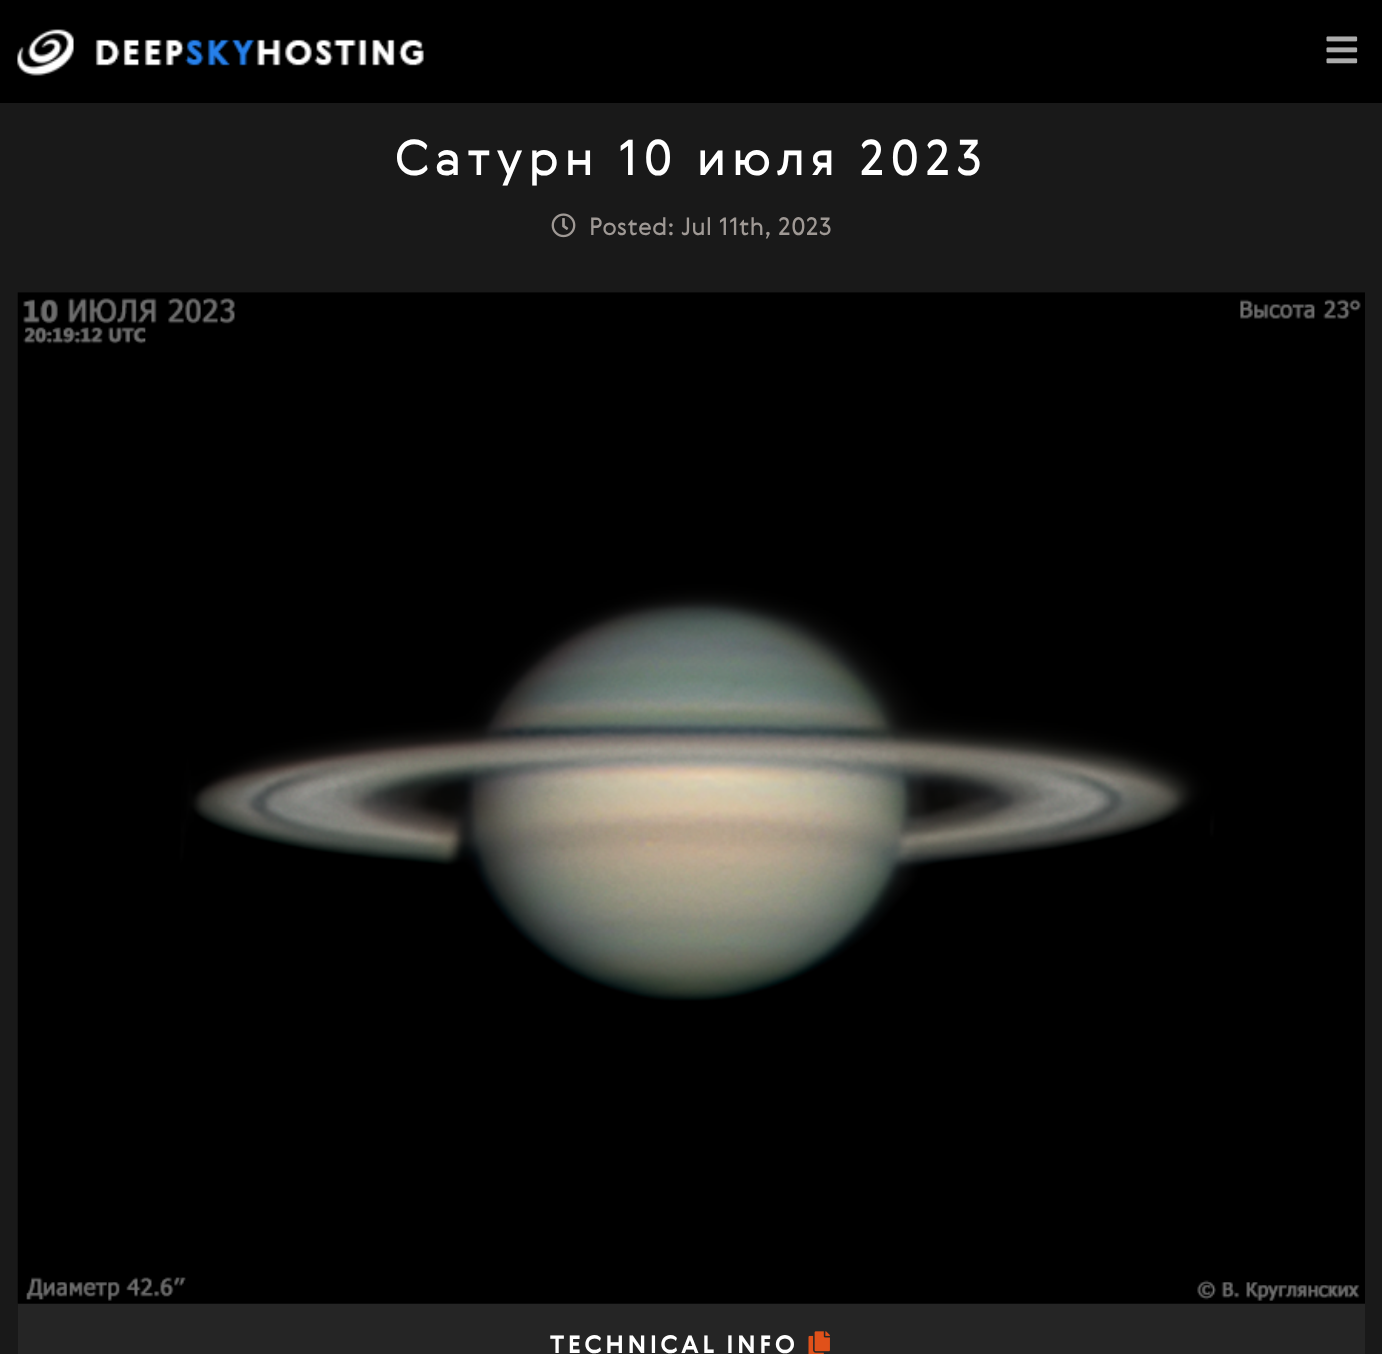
async function draw(canvas) {
  canvas.width = 1382;
  canvas.height = 1354;
  const ctx = canvas.getContext('2d');
  ctx.miterLimit = 4;
  ctx.fontKerning = 'normal';
  function label(s, x, y, font, color) {
    ctx.font = font;
    ctx.fillStyle = color;
    ctx.fillText(s, x, y);
  }
  function rect(x, y, w, h, color) {
    ctx.fillStyle = color;
    ctx.fillRect(x, y, w, h);
  }
  async function image(src, x, y, w, h) {
    const img = new Image();
    img.src = src;
    await img.decode();
    ctx.drawImage(img, x, y, w, h);
  }

  rect(0, 0, 1382, 1354, '#000');
  await image('assets/img1.png', 17, 29, 407, 47);
  await image('assets/img2.png', 1326, 36, 32, 28);
  rect(0, 103, 1382, 1251, '#191919');
  ctx.letterSpacing = '5.25px';
  label('Сатурн 10 июля 2023', 395, 175, '49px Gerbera', '#fff');
  await image('assets/img3.png', 551, 213, 25, 25);
  ctx.letterSpacing = '0px';
  label('Posted: Jul 11th, 2023', 589, 235, '24.5px Gerbera', '#9f9995');
  await image('assets/img4.png', 17, 292, 1348, 1012);
  rect(18, 1304, 1347, 50, '#252525');
  ctx.letterSpacing = '3.5px';
  label('TECHNICAL INFO', 550, 1353, 'bold 24.5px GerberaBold', '#fff');
  await image('assets/img5.png', 808, 1331, 22, 23);
}

draw(document.querySelector('canvas'));
